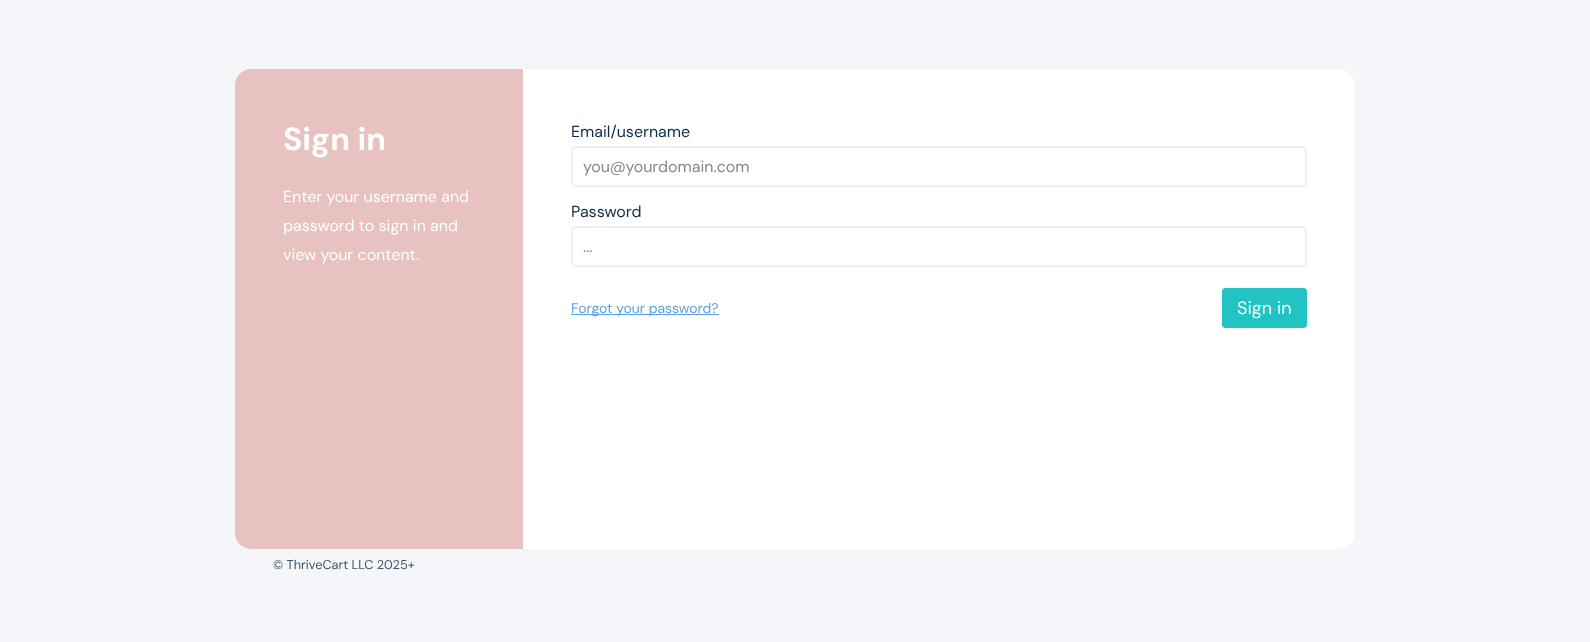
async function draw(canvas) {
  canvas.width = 1590;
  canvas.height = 642;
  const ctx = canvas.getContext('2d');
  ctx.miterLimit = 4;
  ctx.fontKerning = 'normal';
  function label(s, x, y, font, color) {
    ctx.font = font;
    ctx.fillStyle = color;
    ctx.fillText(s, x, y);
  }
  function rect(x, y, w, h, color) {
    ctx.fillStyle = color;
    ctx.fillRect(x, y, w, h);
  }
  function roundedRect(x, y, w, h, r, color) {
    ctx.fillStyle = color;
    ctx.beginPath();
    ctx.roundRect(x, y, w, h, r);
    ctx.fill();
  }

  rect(0, 0, 1590, 642, '#f4f6f9');
  ctx.fillStyle = '#e8c1c1';
  ctx.beginPath();
  ctx.roundRect(235, 69, 288, 480, [16, 0, 0, 16]);
  ctx.fill();
  label('Sign in', 283, 150, 'bold 32px DM Sans', '#fff');
  label('Enter your username and', 283, 202, '16px DM Sans', '#fff');
  label('password to sign in and', 283, 231, '16px DM Sans', '#fff');
  label('view your content.', 283, 260, '16px DM Sans', '#fff');
  ctx.beginPath();
  ctx.roundRect(523, 69, 832, 480, [0, 16, 16, 0]);
  ctx.fill();
  label('Email/username', 571, 137, '16px DM Sans', '#102e47');
  ctx.beginPath();
  ctx.roundRect(572, 147, 734, 39, 3);
  ctx.strokeStyle = '#eef0f3';
  ctx.lineWidth = 2;
  ctx.stroke();
  label('you@yourdomain.com', 583, 172, '16px DM Sans', '#888');
  label('Password', 571, 217, '16px DM Sans', '#102e47');
  ctx.beginPath();
  ctx.roundRect(572, 227, 734, 39, 3);
  ctx.stroke();
  label('...', 583, 252, '16px DM Sans', '#888');
  rect(571, 314, 148, 1, '#5ca0e4');
  label('Forgot your password?', 571, 313, '14px DM Sans', '#5ca0e4');
  roundedRect(1222, 288, 85, 40, 4, '#21c3c5');
  label('Sign in', 1237, 314, '18px DM Sans', '#fff');
  label('© ThriveCart LLC 2025+', 273, 569, '12.75px DM Sans', '#3e566b');
}

draw(document.querySelector('canvas'));
